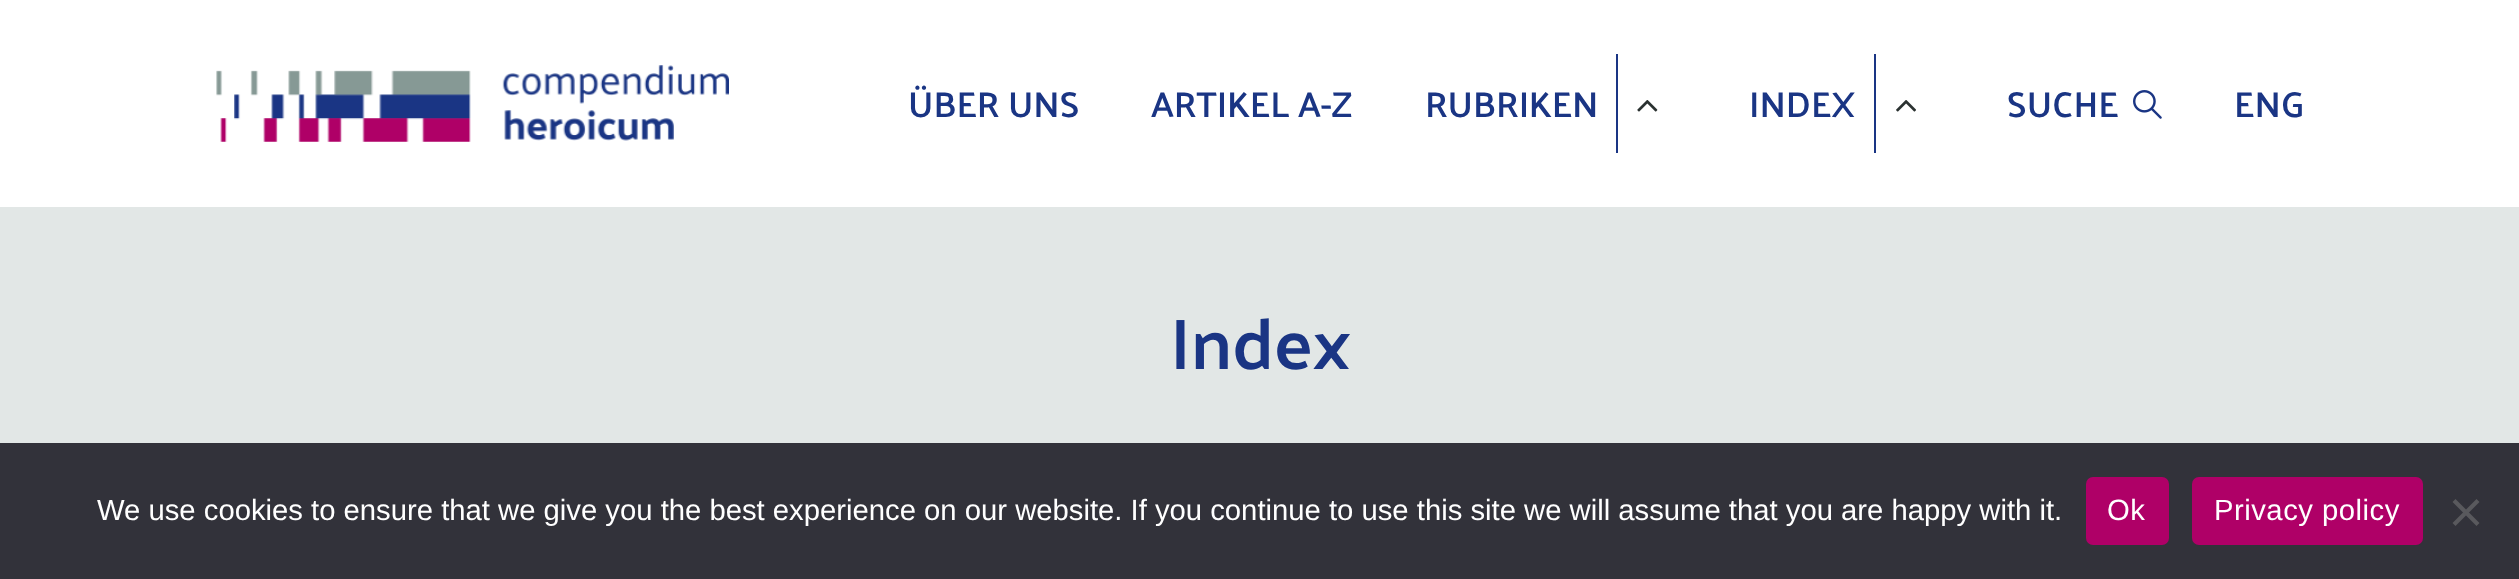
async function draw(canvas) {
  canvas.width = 2519;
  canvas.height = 579;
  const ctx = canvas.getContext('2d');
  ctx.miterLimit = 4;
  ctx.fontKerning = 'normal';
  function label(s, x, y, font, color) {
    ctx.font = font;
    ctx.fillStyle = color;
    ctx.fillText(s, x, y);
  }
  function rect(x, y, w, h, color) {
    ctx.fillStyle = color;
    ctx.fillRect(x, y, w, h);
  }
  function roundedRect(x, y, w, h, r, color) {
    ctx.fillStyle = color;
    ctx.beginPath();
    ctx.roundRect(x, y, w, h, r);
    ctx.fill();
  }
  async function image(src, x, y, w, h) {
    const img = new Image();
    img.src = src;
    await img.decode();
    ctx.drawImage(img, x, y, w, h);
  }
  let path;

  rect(0, 0, 2519, 579, '#e2e7e6');
  rect(0, 0, 2519, 207, '#fff');
  await image('assets/img1.png', 216, 65, 513, 77);
  label('ÜBER UNS', 908, 117, '600 36px Palanquin', '#1a3584');
  label('ARTIKEL A-Z', 1151, 117, '600 36px Palanquin', '#1a3584');
  label('RUBRIKEN', 1425, 117, '600 36px Palanquin', '#1a3584');
  rect(1616, 54, 2, 99, '#1a3584');
  await image('assets/img2.png', 1637, 100, 21, 12);
  label('INDEX', 1749, 117, '600 36px Palanquin', '#1a3584');
  rect(1874, 54, 2, 99, '#1a3584');
  await image('assets/img3.png', 1896, 100, 20, 12);
  label('SUCHE', 2007, 117, '600 36px Palanquin', '#1a3584');
  await image('assets/img4.png', 2133, 90, 29, 29);
  label('ENG', 2234, 117, '600 36px Palanquin', '#1a3584');
  label('Index', 1170, 369, '600 72px Palanquin', '#1a3584');
  rect(0, 443, 2519, 136, '#32323a');
  label('We use cookies to ensure that we give you the best experience on our website. If you continue to use this site we will assume that you are happy with it.', 97, 520, '29.25px Liberation Sans', '#fff');
  roundedRect(2086, 477, 83, 68, 7, '#af0067');
  ctx.letterSpacing = '0.5px';
  label('Ok', 2107, 520, '29.25px Liberation Sans', '#fff');
  roundedRect(2192, 477, 231, 68, 7, '#af0067');
  label('Privacy policy', 2214, 520, '29.25px Liberation Sans', '#fff');
  ctx.fillStyle = '#59595d';
  path = new Path2D('M2476.5 499L2479.5 502L2455.5 526L2452.5 523Z');
  ctx.fill(path);
  path = new Path2D('M2452.5 502L2455.5 499L2479.5 523L2476.5 526Z');
  ctx.fill(path);
}

draw(document.querySelector('canvas'));
